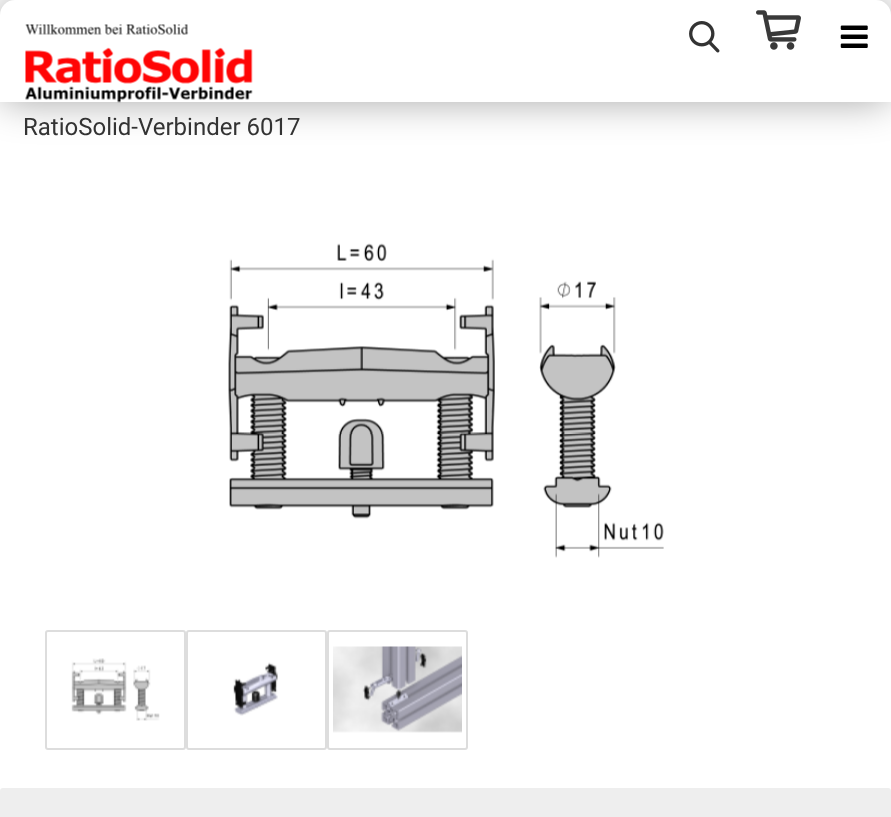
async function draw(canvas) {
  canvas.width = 891;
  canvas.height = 817;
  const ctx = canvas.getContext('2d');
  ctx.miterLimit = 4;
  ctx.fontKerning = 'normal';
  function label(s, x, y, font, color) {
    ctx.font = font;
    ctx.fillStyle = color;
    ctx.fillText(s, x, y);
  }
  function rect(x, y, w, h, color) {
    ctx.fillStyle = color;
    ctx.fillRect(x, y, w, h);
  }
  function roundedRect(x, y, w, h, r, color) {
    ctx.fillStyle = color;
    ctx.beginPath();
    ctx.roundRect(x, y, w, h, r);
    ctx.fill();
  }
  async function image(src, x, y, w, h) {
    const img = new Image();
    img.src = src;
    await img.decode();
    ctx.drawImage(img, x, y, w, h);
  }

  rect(0, 0, 891, 817, '#fff');
  ctx.fillStyle = '#00000059';
  ctx.filter = 'blur(19px)';
  ctx.beginPath();
  ctx.roundRect(0, 0, 891, 102, 15);
  ctx.fill();
  ctx.filter = 'none';
  ctx.fillStyle = '#fff';
  ctx.beginPath();
  ctx.roundRect(0, 0, 891, 102, [15, 15, 0, 0]);
  ctx.fill();
  await image('assets/img1.png', 25, 24, 228, 79);
  await image('assets/img2.png', 689, 21, 31, 32);
  await image('assets/img3.png', 756, 10, 45, 40);
  await image('assets/img4.png', 840, 25, 28, 23);
  label('RatioSolid-Verbinder 6017', 23, 135, '24px Roboto', '#333');
  await image('assets/img5.png', 228, 243, 436, 315);
  ctx.beginPath();
  ctx.roundRect(46, 631, 139, 118, 2);
  ctx.strokeStyle = '#ddd';
  ctx.lineWidth = 2;
  ctx.stroke();
  await image('assets/img6.png', 71, 658, 89, 63);
  ctx.beginPath();
  ctx.roundRect(187, 631, 139, 118, 2);
  ctx.stroke();
  await image('assets/img7.png', 233, 662, 45, 54);
  ctx.beginPath();
  ctx.roundRect(328, 631, 139, 118, 2);
  ctx.stroke();
  await image('assets/img8.png', 333, 646, 129, 87);
  roundedRect(0, 788, 891, 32, 3, '#eee');
}

draw(document.querySelector('canvas'));
